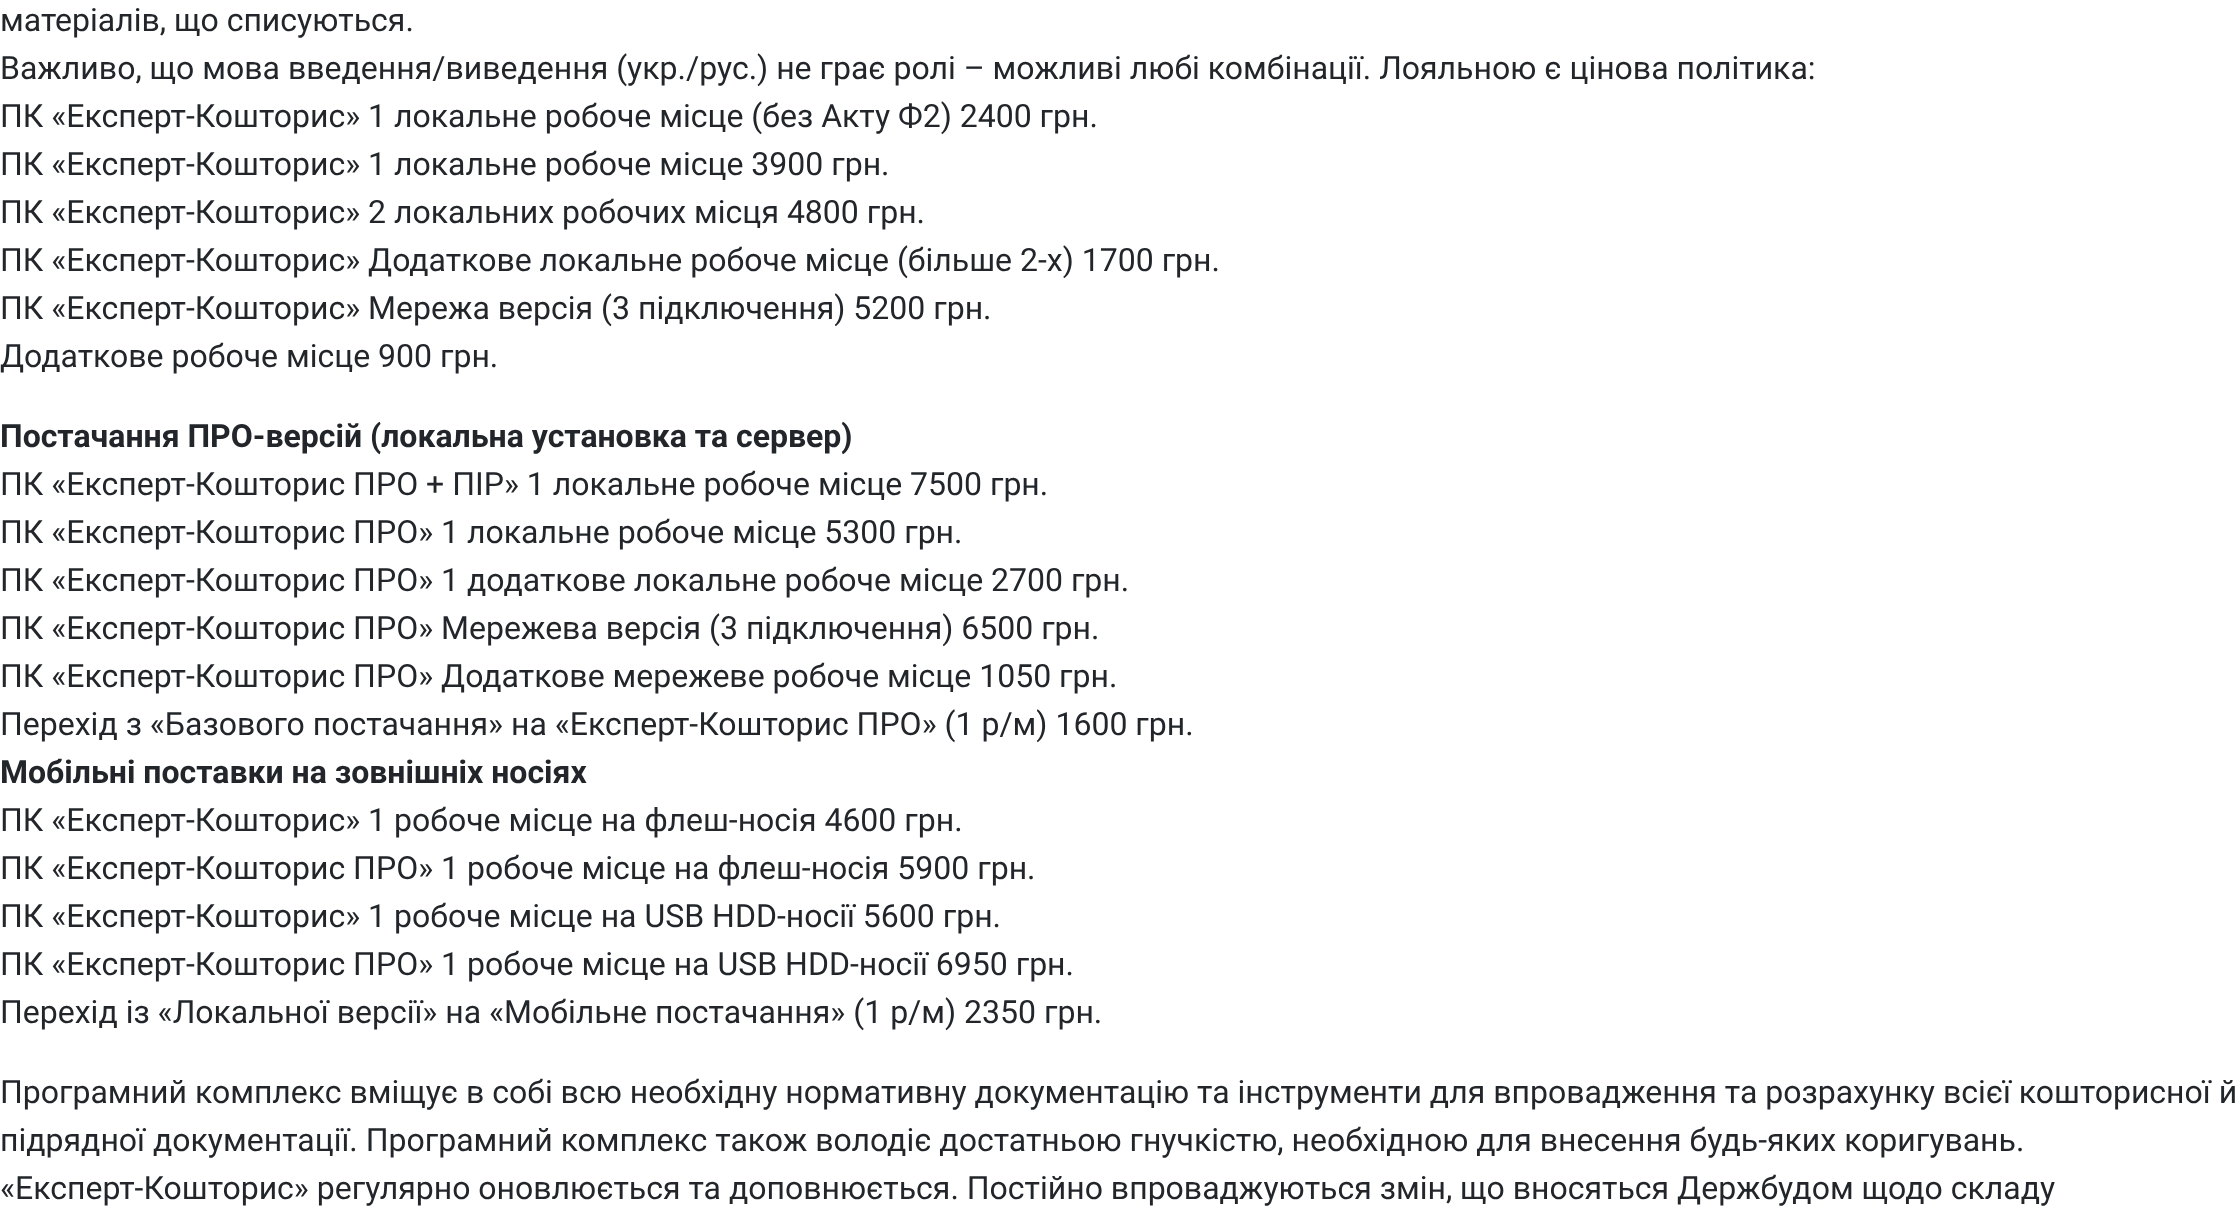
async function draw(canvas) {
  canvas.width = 2240;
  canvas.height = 1227;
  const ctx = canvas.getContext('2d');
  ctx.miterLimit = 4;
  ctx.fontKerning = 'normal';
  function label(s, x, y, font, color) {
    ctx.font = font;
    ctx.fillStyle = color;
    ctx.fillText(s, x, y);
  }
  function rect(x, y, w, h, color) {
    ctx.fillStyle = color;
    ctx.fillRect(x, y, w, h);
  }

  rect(0, 0, 2240, 1227, '#fff');
  label('матеріалів, що списуються.', 0, 31, '32px Roboto', '#22262a');
  label('Важливо, що мова введення/виведення (укр./рус.) не грає ролі – можливі любі комбінації. Лояльною є цінова політика:', 0, 79, '32px Roboto', '#22262a');
  label('ПК «Експерт-Кошторис» 1 локальне робоче місце (без Акту Ф2) 2400 грн.', 0, 127, '32px Roboto', '#22262a');
  label('ПК «Експерт-Кошторис» 1 локальне робоче місце 3900 грн.', 0, 175, '32px Roboto', '#22262a');
  label('ПК «Експерт-Кошторис» 2 локальних робочих місця 4800 грн.', 0, 223, '32px Roboto', '#22262a');
  label('ПК «Експерт-Кошторис» Додаткове локальне робоче місце (більше 2-х) 1700 грн.', 0, 271, '32px Roboto', '#22262a');
  label('ПК «Експерт-Кошторис» Мережа версія (3 підключення) 5200 грн.', 0, 319, '32px Roboto', '#22262a');
  label('Додаткове робоче місце 900 грн.', 0, 367, '32px Roboto', '#22262a');
  label('Постачання ПРО-версій (локальна установка та сервер)', 0, 447, 'bold 32px Roboto', '#22262a');
  label('ПК «Експерт-Кошторис ПРО + ПІР» 1 локальне робоче місце 7500 грн.', 0, 495, '32px Roboto', '#22262a');
  label('ПК «Експерт-Кошторис ПРО» 1 локальне робоче місце 5300 грн.', 0, 543, '32px Roboto', '#22262a');
  label('ПК «Експерт-Кошторис ПРО» 1 додаткове локальне робоче місце 2700 грн.', 0, 591, '32px Roboto', '#22262a');
  label('ПК «Експерт-Кошторис ПРО» Мережева версія (3 підключення) 6500 грн.', 0, 639, '32px Roboto', '#22262a');
  label('ПК «Експерт-Кошторис ПРО» Додаткове мережеве робоче місце 1050 грн.', 0, 687, '32px Roboto', '#22262a');
  label('Перехід з «Базового постачання» на «Експерт-Кошторис ПРО» (1 р/м) 1600 грн.', 0, 735, '32px Roboto', '#22262a');
  label('Мобільні поставки на зовнішніх носіях', 0, 783, 'bold 32px Roboto', '#22262a');
  label('ПК «Експерт-Кошторис» 1 робоче місце на флеш-носія 4600 грн.', 0, 831, '32px Roboto', '#22262a');
  label('ПК «Експерт-Кошторис ПРО» 1 робоче місце на флеш-носія 5900 грн.', 0, 879, '32px Roboto', '#22262a');
  label('ПК «Експерт-Кошторис» 1 робоче місце на USB HDD-носії 5600 грн.', 0, 927, '32px Roboto', '#22262a');
  label('ПК «Експерт-Кошторис ПРО» 1 робоче місце на USB HDD-носії 6950 грн.', 0, 975, '32px Roboto', '#22262a');
  label('Перехід із «Локальної версії» на «Мобільне постачання» (1 р/м) 2350 грн.', 0, 1023, '32px Roboto', '#22262a');
  label('Програмний комплекс вміщує в собі всю необхідну нормативну документацію та інструменти для впровадження та розрахунку всієї кошторисної й', 0, 1103, '32px Roboto', '#22262a');
  label('підрядної документації. Програмний комплекс також володіє достатньою гнучкістю, необхідною для внесення будь-яких коригувань.', 0, 1151, '32px Roboto', '#22262a');
  label('«Експерт-Кошторис» регулярно оновлюється та доповнюється. Постійно впроваджуються змін, що вносяться Держбудом щодо складу', 0, 1199, '32px Roboto', '#22262a');
}

draw(document.querySelector('canvas'));
